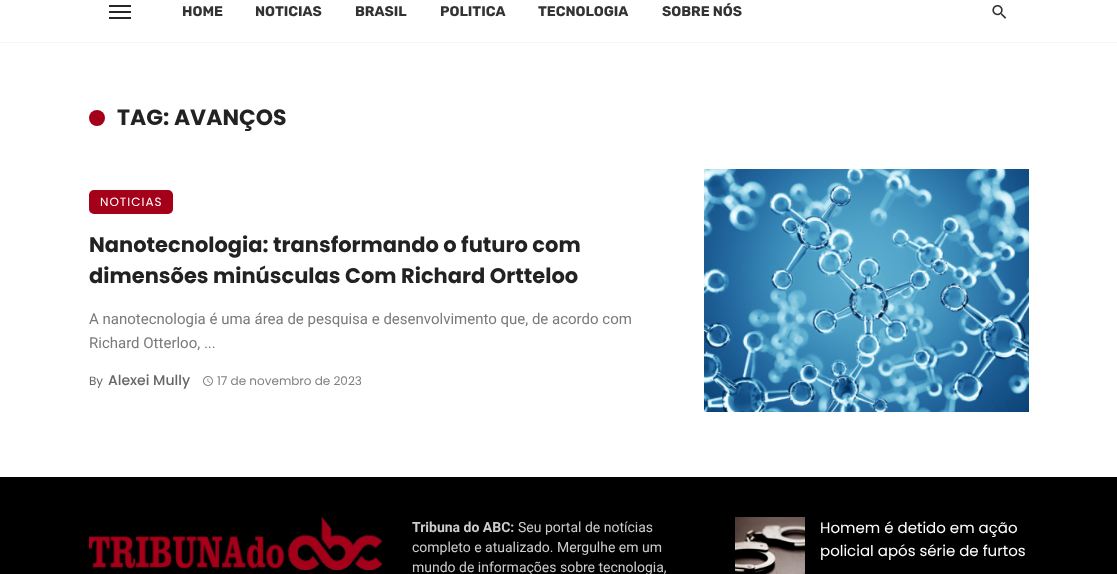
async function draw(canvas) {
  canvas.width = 1117;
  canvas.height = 574;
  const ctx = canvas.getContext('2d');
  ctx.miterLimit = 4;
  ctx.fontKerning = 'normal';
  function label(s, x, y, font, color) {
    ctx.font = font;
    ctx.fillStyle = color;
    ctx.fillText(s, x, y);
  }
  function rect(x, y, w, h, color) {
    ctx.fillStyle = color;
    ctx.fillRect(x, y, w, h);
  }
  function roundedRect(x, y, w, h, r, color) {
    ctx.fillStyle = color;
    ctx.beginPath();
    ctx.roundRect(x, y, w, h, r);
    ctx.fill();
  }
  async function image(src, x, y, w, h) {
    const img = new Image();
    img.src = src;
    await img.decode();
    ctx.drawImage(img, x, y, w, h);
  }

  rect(0, 0, 1117, 574, '#fff');
  rect(0, 42, 1117, 1, '#f5f5f5');
  rect(109, 11, 22, 2, '#262626');
  rect(109, 5, 22, 2, '#262626');
  rect(109, 17, 22, 2, '#262626');
  label('HOME', 182, 16, 'bold 14px Rubik', '#333');
  label('NOTICIAS', 255, 16, 'bold 14px Rubik', '#333');
  label('BRASIL', 355, 16, 'bold 14px Rubik', '#333');
  label('POLITICA', 440, 16, 'bold 14px Rubik', '#333');
  label('TECNOLOGIA', 538, 16, 'bold 14px Rubik', '#333');
  label('SOBRE NÓS', 662, 16, 'bold 14px Rubik', '#333');
  await image('assets/img1.png', 992, 5, 15, 14);
  ctx.fillStyle = '#a40019';
  ctx.beginPath();
  ctx.arc(97, 118, 8, 0, 2 * Math.PI);
  ctx.fill();
  label('TAG: AVANÇOS', 117, 125, 'bold 22px Poppins', '#222');
  roundedRect(89, 190, 84, 24, 5, '#a40019');
  ctx.letterSpacing = '1px';
  label('NOTICIAS', 100, 206, '12px Poppins', '#fff');
  ctx.letterSpacing = '0px';
  label('Nanotecnologia: transformando o futuro com', 89, 252, 'bold 21px Poppins', '#222');
  label('dimensões minúsculas Com Richard Ortteloo', 89, 283, 'bold 21px Poppins', '#222');
  label('A nanotecnologia é uma área de pesquisa e desenvolvimento que, de acordo com', 89, 324, '15px Roboto', '#7a7a7a');
  label('Richard Otterloo, ...', 89, 348, '15px Roboto', '#7a7a7a');
  label('By', 89, 385, '12px Poppins', '#666');
  label('Alexei Mully', 108, 385, '500 14px Poppins', '#666');
  await image('assets/img2.png', 203, 376, 10, 10);
  label('17 de novembro de 2023', 217, 385, '12px Poppins', '#808080');
  await image('assets/img3.png', 704, 169, 325, 243);
  rect(0, 477, 1117, 97, '#000');
  await image('assets/img4.png', 89, 517, 293, 53);
  label('Tribuna do ABC:', 412, 532, 'bold 14px Roboto', '#ccc');
  label('Seu portal de notícias', 518, 532, '14px Roboto', '#ccc');
  label('completo e atualizado. Mergulhe em um', 412, 552, '14px Roboto', '#ccc');
  label('mundo de informações sobre tecnologia,', 412, 572, '14px Roboto', '#ccc');
  await image('assets/img5.png', 735, 517, 70, 57);
  label('Homem é detido em ação', 820, 533, '15px Poppins', '#fff');
  label('policial após série de furtos', 820, 556, '15px Poppins', '#fff');
}

draw(document.querySelector('canvas'));
